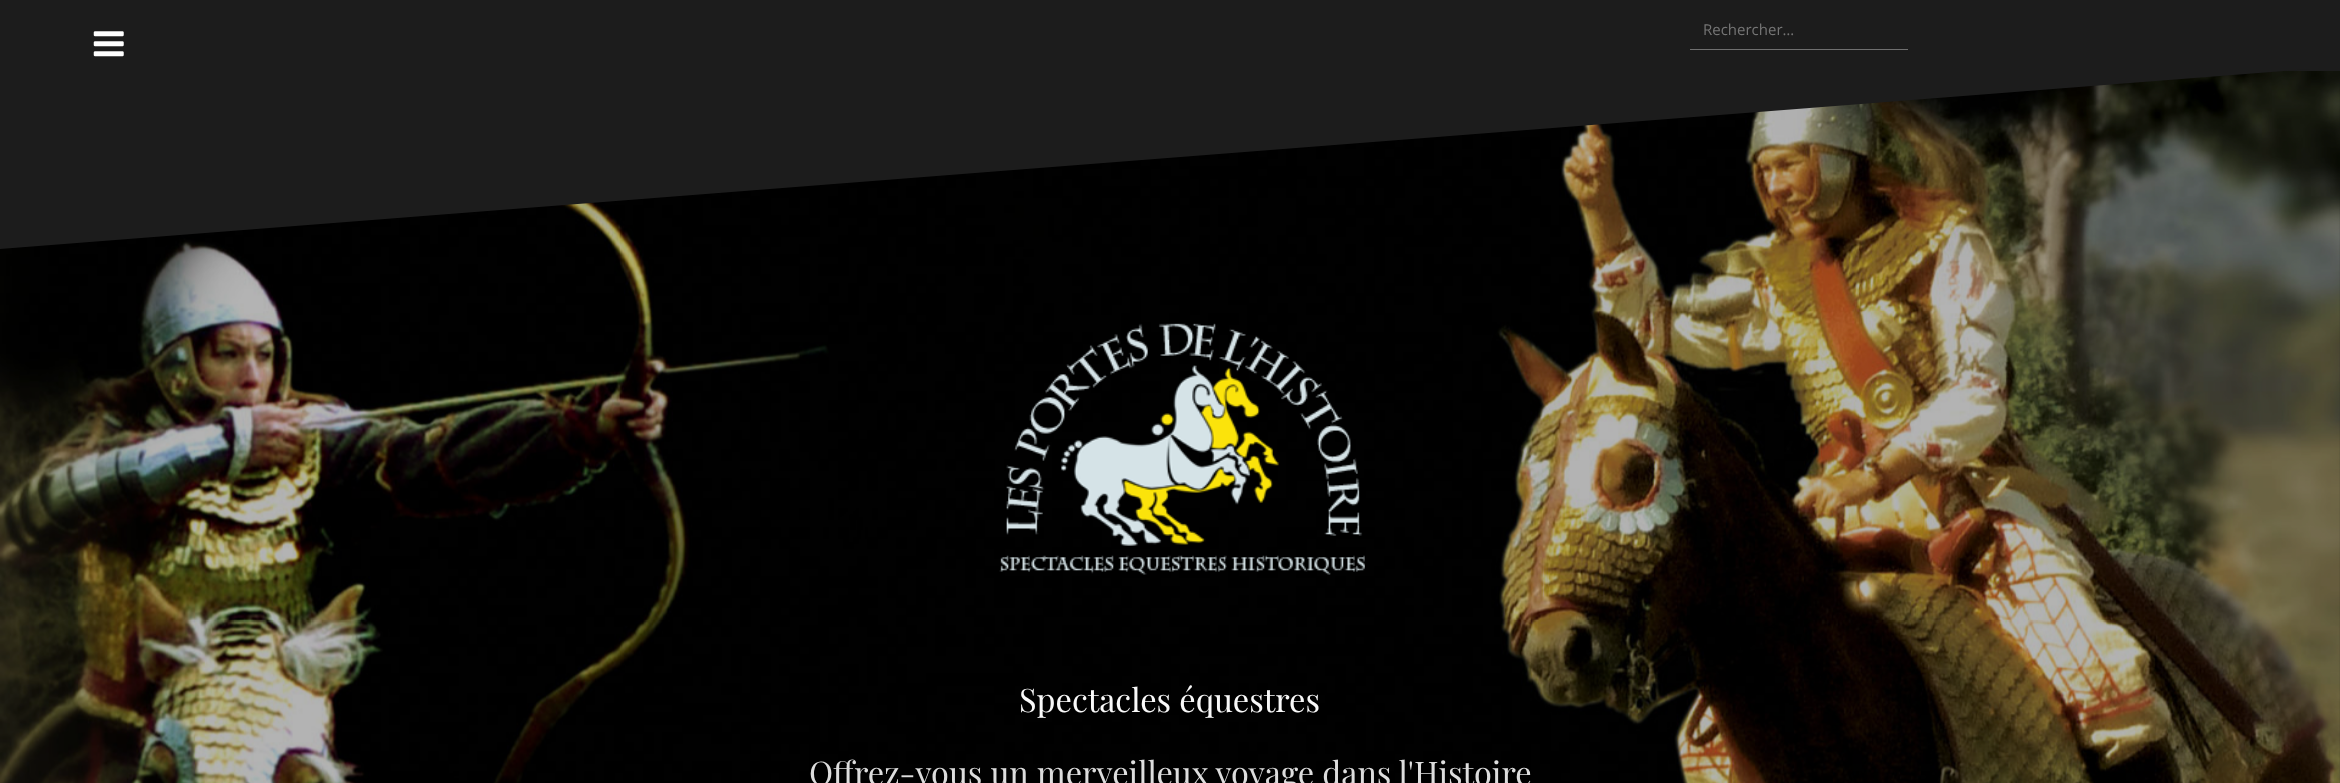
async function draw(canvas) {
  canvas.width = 2340;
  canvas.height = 783;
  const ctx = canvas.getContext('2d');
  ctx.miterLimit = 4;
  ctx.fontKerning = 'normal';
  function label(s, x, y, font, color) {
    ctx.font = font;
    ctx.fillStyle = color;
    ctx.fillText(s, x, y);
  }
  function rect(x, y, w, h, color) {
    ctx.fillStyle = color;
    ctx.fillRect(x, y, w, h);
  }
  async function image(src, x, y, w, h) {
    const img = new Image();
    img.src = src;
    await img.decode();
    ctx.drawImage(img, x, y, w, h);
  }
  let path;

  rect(0, 0, 2340, 783, '#1c1c1c');
  rect(1690, 49, 218, 1, '#6f6f6f');
  label('Rechercher…', 1703, 35, '15px Open Sans', '#757575');
  await image('assets/img1.png', 93, 31, 31, 26);
  await image('assets/img2.png', 0, 71, 2340, 712);
  ctx.fillStyle = '#1c1c1c';
  path = new Path2D('M0 249V69H2310');
  ctx.fill(path);
  await image('assets/img3.png', 999, 323, 366, 252);
  label('Spectacles équestres', 1019, 712, '32.5px Playfair Display', '#f9f9f9');
  label('Offrez-vous un merveilleux voyage dans l\'Histoire', 809, 785, '32.5px Playfair Display', '#ddd');
}

draw(document.querySelector('canvas'));
